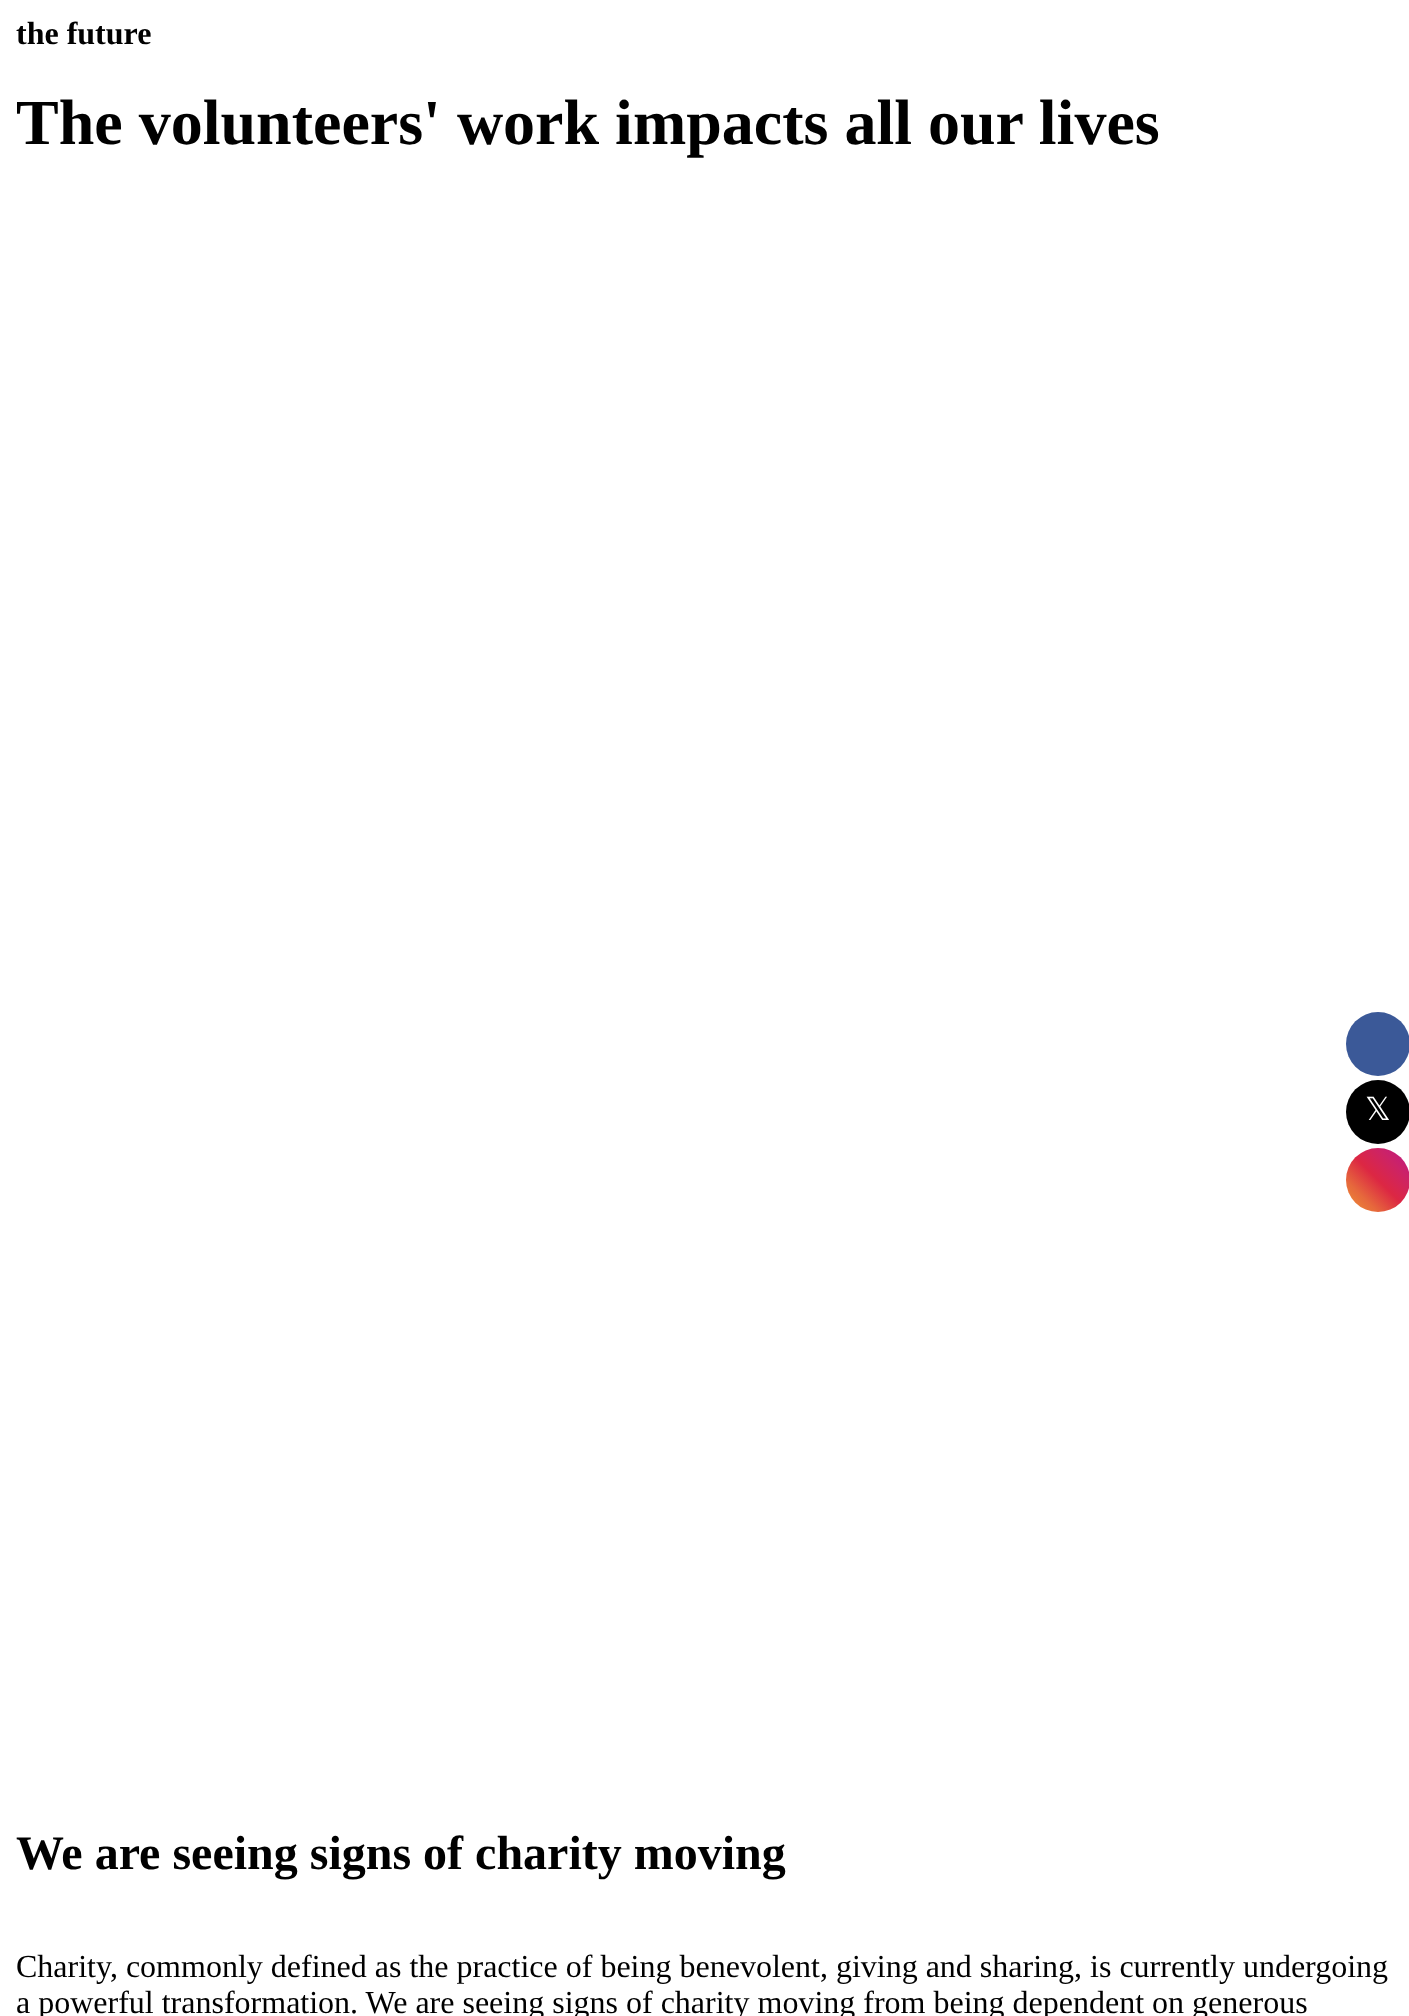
async function draw(canvas) {
  canvas.width = 1409;
  canvas.height = 2016;
  const ctx = canvas.getContext('2d');
  ctx.miterLimit = 4;
  ctx.fontKerning = 'normal';
  function label(s, x, y, font, color) {
    ctx.font = font;
    ctx.fillStyle = color;
    ctx.fillText(s, x, y);
  }
  function rect(x, y, w, h, color) {
    ctx.fillStyle = color;
    ctx.fillRect(x, y, w, h);
  }
  let gradient;

  rect(0, 0, 1409, 2016, '#fff');
  label('the future', 16, 44, 'bold 32px Liberation Serif', '#000');
  label('The volunteers\' work impacts all our lives', 16, 144, 'bold 64px Liberation Serif', '#000');
  label('We are seeing signs of charity moving', 16, 1869, 'bold 48px Liberation Serif', '#000');
  label('Charity, commonly defined as the practice of being benevolent, giving and sharing, is currently undergoing', 16, 1977, '32px Liberation Serif', '#000');
  label('a powerful transformation. We are seeing signs of charity moving from being dependent on generous', 16, 2013, '32px Liberation Serif', '#000');
  ctx.fillStyle = '#3b5998';
  ctx.beginPath();
  ctx.arc(1378, 1044, 32, 0, 2 * Math.PI);
  ctx.fill();
  ctx.fillStyle = '#000';
  ctx.beginPath();
  ctx.arc(1378, 1112, 32, 0, 2 * Math.PI);
  ctx.fill();
  label('𝕏', 1365, 1120, '32px DejaVu Sans', '#fff');
  gradient = ctx.createLinearGradient(1346, 1212, 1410, 1148);
  gradient.addColorStop(0, '#f09433');
  gradient.addColorStop(0.25, '#e6683c');
  gradient.addColorStop(0.5, '#dc2743');
  gradient.addColorStop(0.75, '#cc2366');
  gradient.addColorStop(1, '#bc1888');
  ctx.fillStyle = gradient;
  ctx.beginPath();
  ctx.arc(1378, 1180, 32, 0, 2 * Math.PI);
  ctx.fill();
}

draw(document.querySelector('canvas'));
